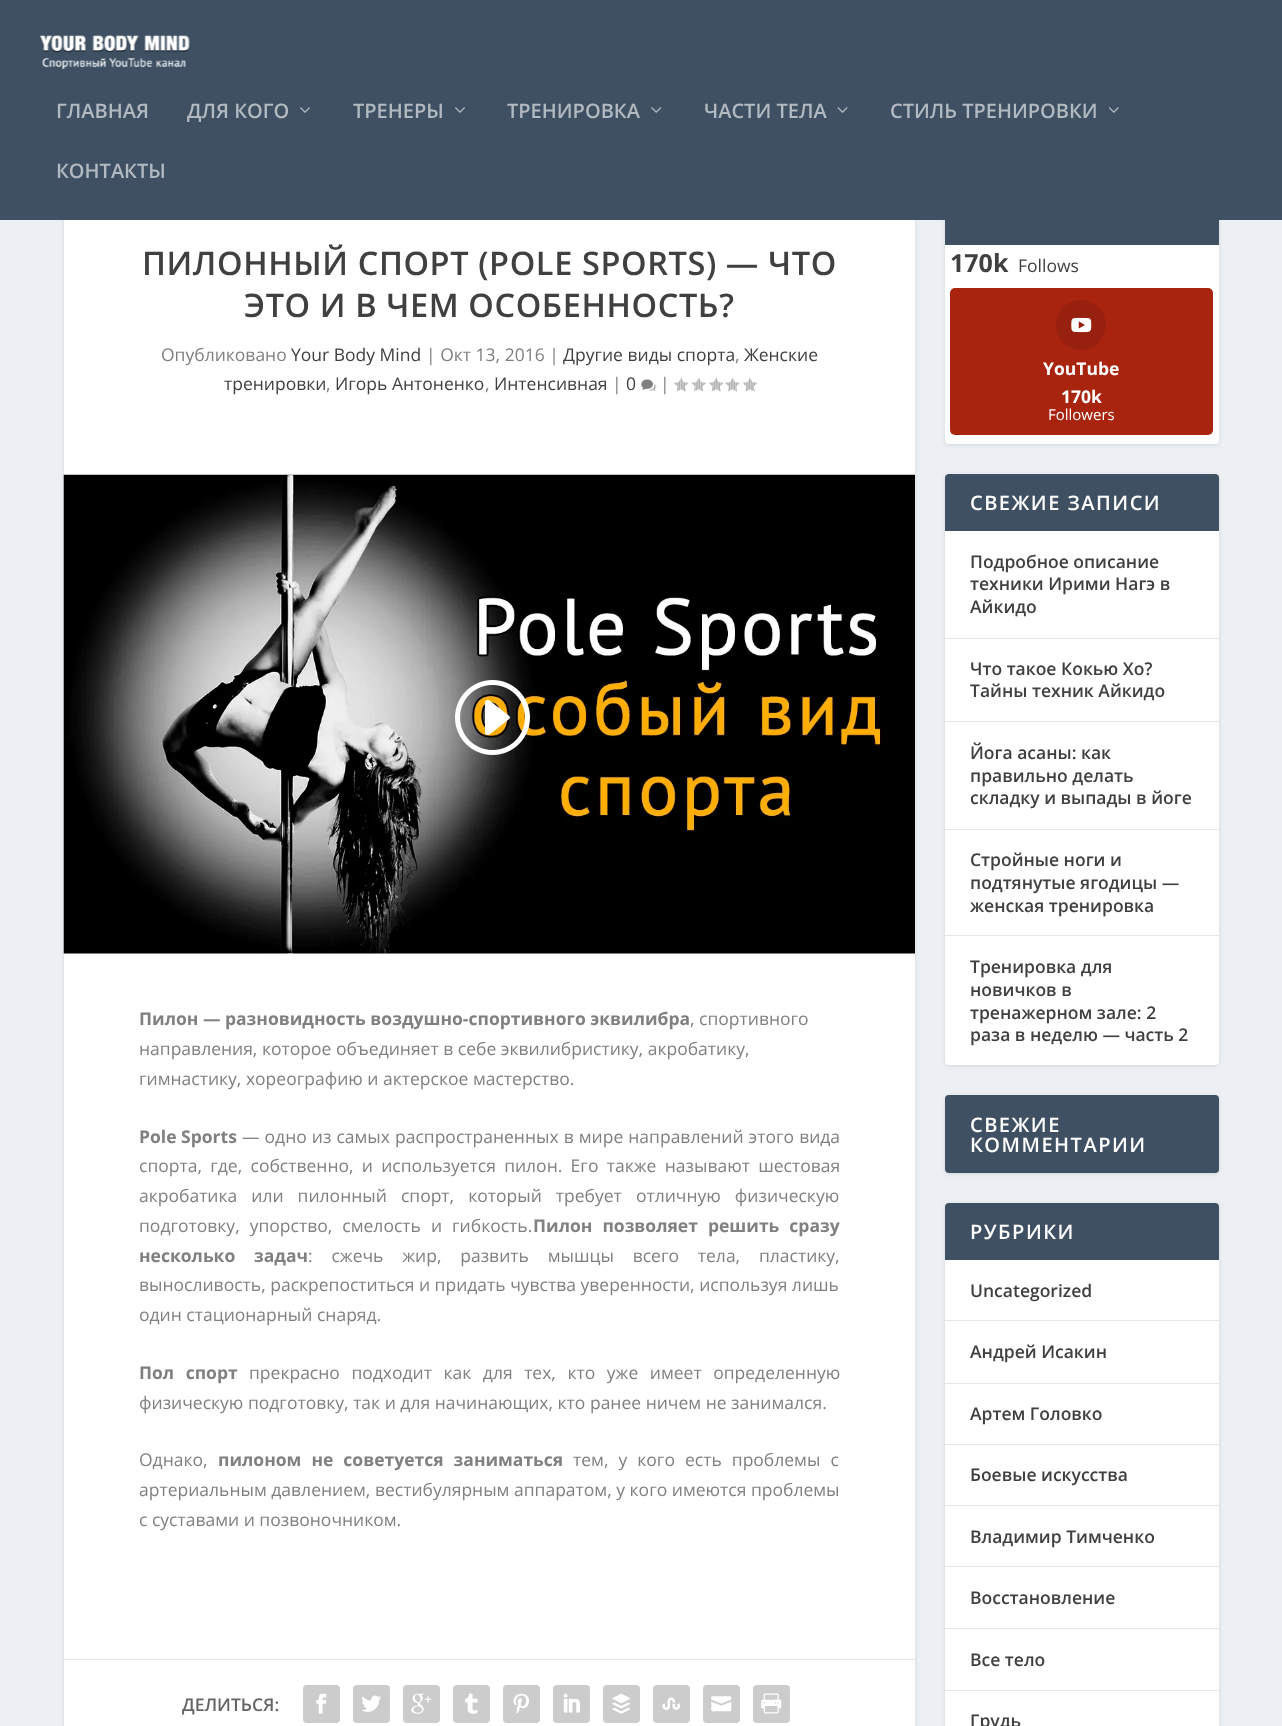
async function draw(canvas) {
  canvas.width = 1282;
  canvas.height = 1726;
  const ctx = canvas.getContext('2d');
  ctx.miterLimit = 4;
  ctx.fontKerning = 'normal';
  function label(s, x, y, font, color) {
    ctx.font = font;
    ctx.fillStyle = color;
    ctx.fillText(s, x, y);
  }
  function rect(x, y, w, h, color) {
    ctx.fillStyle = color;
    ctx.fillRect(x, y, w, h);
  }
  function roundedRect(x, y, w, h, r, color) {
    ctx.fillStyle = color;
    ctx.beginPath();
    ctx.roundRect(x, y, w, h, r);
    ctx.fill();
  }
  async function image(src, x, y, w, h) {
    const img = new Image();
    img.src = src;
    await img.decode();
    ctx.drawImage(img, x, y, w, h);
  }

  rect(0, 0, 1282, 1726, '#ecf0f5');
  ctx.fillStyle = '#0000001a';
  ctx.filter = 'blur(2px)';
  ctx.beginPath();
  ctx.roundRect(64, 169, 851, 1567, 4);
  ctx.fill();
  ctx.filter = 'none';
  ctx.filter = 'blur(2px)';
  ctx.beginPath();
  ctx.roundRect(945, 169, 274, 276, 4);
  ctx.fill();
  ctx.filter = 'none';
  roundedRect(945, 168, 274, 276, 4, '#fff');
  rect(0, 0, 1282, 220, '#3e5062');
  await image('assets/img1.png', 39, 35, 151, 34);
  label('ГЛАВНАЯ', 56, 118, '600 20px Open Sans', '#b2b9c0');
  label('ДЛЯ КОГО', 187, 118, '600 20px Open Sans', '#b2b9c0');
  await image('assets/img2.png', 300, 107, 10, 6);
  label('ТРЕНЕРЫ', 353, 118, '600 20px Open Sans', '#b2b9c0');
  await image('assets/img2.png', 455, 107, 10, 6);
  label('ТРЕНИРОВКА', 507, 118, '600 20px Open Sans', '#b2b9c0');
  await image('assets/img3.png', 651, 107, 11, 6);
  label('ЧАСТИ ТЕЛА', 704, 118, '600 20px Open Sans', '#b2b9c0');
  await image('assets/img4.png', 837, 107, 11, 6);
  label('СТИЛЬ ТРЕНИРОВКИ', 890, 118, '600 20px Open Sans', '#b2b9c0');
  await image('assets/img5.png', 1108, 107, 11, 6);
  label('КОНТАКТЫ', 56, 178, '600 20px Open Sans', '#b2b9c0');
  rect(64, 220, 851, 1506, '#fff');
  ctx.letterSpacing = '0.6px';
  label('ПИЛОННЫЙ СПОРТ (POLE SPORTS) — ЧТО', 142, 275, '600 32.5px Open Sans', '#404040');
  label('ЭТО И В ЧЕМ ОСОБЕННОСТЬ?', 244, 317, '600 32.5px Open Sans', '#404040');
  ctx.letterSpacing = '0px';
  label('Опубликовано', 161, 361, '17.5px Open Sans', '#808080');
  label('Your Body Mind', 291, 361, '17.5px Open Sans', '#404040');
  label('| Окт 13, 2016 |', 426, 361, '17.5px Open Sans', '#808080');
  label('Другие виды спорта', 563, 361, '17.5px Open Sans', '#404040');
  label(',', 735, 361, '17.5px Open Sans', '#808080');
  label('Женские', 744, 361, '17.5px Open Sans', '#404040');
  label('тренировки', 224, 390, '17.5px Open Sans', '#404040');
  label(',', 326, 390, '17.5px Open Sans', '#808080');
  label('Игорь Антоненко', 335, 390, '17.5px Open Sans', '#404040');
  label(',', 485, 390, '17.5px Open Sans', '#808080');
  label('Интенсивная', 494, 390, '17.5px Open Sans', '#404040');
  label('|', 612, 390, '17.5px Open Sans', '#808080');
  label('0', 626, 390, '17.5px Open Sans', '#404040');
  await image('assets/img6.png', 641, 379, 16, 12);
  label('|', 660, 390, '17.5px Open Sans', '#808080');
  await image('assets/img7.png', 674, 377, 15, 15);
  await image('assets/img8.png', 691, 377, 15, 15);
  await image('assets/img7.png', 709, 377, 15, 15);
  await image('assets/img9.png', 725, 377, 15, 15);
  await image('assets/img10.png', 742, 377, 15, 15);
  await image('assets/img11.png', 63, 474, 852, 480);
  await image('assets/img12.png', 455, 680, 75, 75);
  label('Пилон — разновидность воздушно-спортивного эквилибра', 139, 1025, 'bold 17.5px Open Sans', '#808080');
  label(', спортивного', 690, 1025, '17.5px Open Sans', '#808080');
  label('направления, которое объединяет в себе эквилибристику, акробатику,', 139, 1055, '17.5px Open Sans', '#808080');
  label('гимнастику, хореографию и актерское мастерство.', 139, 1085, '17.5px Open Sans', '#808080');
  label('Pole Sports', 139, 1143, 'bold 17.5px Open Sans', '#808080');
  ctx.wordSpacing = '0.5px';
  label('— одно из самых распространенных в мире направлений этого вида', 242, 1143, '17.5px Open Sans', '#808080');
  ctx.wordSpacing = '3.75px';
  label('спорта, где, собственно, и используется пилон. Его также называют шестовая', 139, 1172, '17.5px Open Sans', '#808080');
  ctx.wordSpacing = '9.5px';
  label('акробатика или пилонный спорт, который требует отличную физическую', 139, 1202, '17.5px Open Sans', '#808080');
  ctx.wordSpacing = '5.5px';
  label('подготовку, упорство, смелость и гибкость.', 139, 1232, '17.5px Open Sans', '#808080');
  label('Пилон позволяет решить сразу', 533, 1232, 'bold 17.5px Open Sans', '#808080');
  ctx.wordSpacing = '14.25px';
  label('несколько задач', 139, 1262, 'bold 17.5px Open Sans', '#808080');
  label(': сжечь жир, развить мышцы всего тела, пластику,', 308, 1262, '17.5px Open Sans', '#808080');
  ctx.wordSpacing = '0px';
  label('выносливость, раскрепоститься и придать чувства уверенности, используя лишь', 139, 1291, '17.5px Open Sans', '#808080');
  label('один стационарный снаряд.', 139, 1321, '17.5px Open Sans', '#808080');
  ctx.wordSpacing = '7px';
  label('Пол спорт', 139, 1379, 'bold 17.5px Open Sans', '#808080');
  label('прекрасно подходит как для тех, кто уже имеет определенную', 249, 1379, '17.5px Open Sans', '#808080');
  ctx.wordSpacing = '0px';
  label('физическую подготовку, так и для начинающих, кто ранее ничем не занимался.', 139, 1409, '17.5px Open Sans', '#808080');
  label('Однако,', 139, 1466, '17.5px Open Sans', '#808080');
  ctx.wordSpacing = '5.5px';
  label('пилоном не советуется заниматься', 218, 1466, 'bold 17.5px Open Sans', '#808080');
  label('тем, у кого есть проблемы с', 573, 1466, '17.5px Open Sans', '#808080');
  ctx.wordSpacing = '0px';
  label('артериальным давлением, вестибулярным аппаратом, у кого имеются проблемы', 139, 1496, '17.5px Open Sans', '#808080');
  label('с суставами и позвоночником.', 139, 1526, '17.5px Open Sans', '#808080');
  rect(64, 1659, 851, 1, '#e6e6e6');
  label('ДЕЛИТЬСЯ:', 182, 1711, '600 17.5px Open Sans', '#666');
  roundedRect(303, 1685, 37, 38, 4, '#ccc');
  await image('assets/img13.png', 316, 1693, 11, 21);
  roundedRect(353, 1685, 37, 38, 4, '#ccc');
  await image('assets/img14.png', 361, 1695, 20, 17);
  roundedRect(403, 1685, 37, 38, 4, '#ccc');
  await image('assets/img15.png', 411, 1693, 21, 21);
  roundedRect(453, 1685, 37, 38, 4, '#ccc');
  await image('assets/img16.png', 465, 1693, 13, 21);
  roundedRect(503, 1685, 37, 38, 4, '#ccc');
  await image('assets/img17.png', 513, 1693, 16, 21);
  roundedRect(553, 1685, 37, 38, 4, '#ccc');
  await image('assets/img18.png', 563, 1693, 17, 20);
  roundedRect(603, 1685, 37, 38, 4, '#ccc');
  await image('assets/img19.png', 612, 1693, 19, 21);
  roundedRect(653, 1685, 37, 38, 4, '#ccc');
  await image('assets/img20.png', 662, 1697, 18, 13);
  roundedRect(703, 1685, 37, 38, 4, '#ccc');
  await image('assets/img21.png', 711, 1696, 21, 16);
  roundedRect(753, 1685, 37, 38, 4, '#ccc');
  await image('assets/img22.png', 761, 1693, 21, 21);
  rect(945, 220, 274, 25, '#3e5062');
  label('170k', 950, 272, 'bold 25px Open Sans', '#404040');
  label('Follows', 1018, 272, '17.5px Open Sans', '#404040');
  roundedRect(950, 288, 263, 147, 5, '#a8240f');
  ctx.fillStyle = '#97200e';
  ctx.beginPath();
  ctx.arc(1081, 325, 25, 0, 2 * Math.PI);
  ctx.fill();
  await image('assets/img23.png', 1071, 317, 21, 16);
  label('YouTube', 1043, 375, 'bold 17.5px Open Sans', '#fff');
  label('170k', 1061, 403, 'bold 17.5px Open Sans', '#fff');
  label('Followers', 1048, 420, '15px Open Sans', '#fff');
  ctx.fillStyle = '#0000001a';
  ctx.filter = 'blur(2px)';
  ctx.beginPath();
  ctx.roundRect(945, 475, 274, 591, 4);
  ctx.fill();
  ctx.filter = 'none';
  roundedRect(945, 474, 274, 591, 4, '#fff');
  ctx.fillStyle = '#3e5062';
  ctx.beginPath();
  ctx.roundRect(945, 474, 274, 57, [4, 4, 0, 0]);
  ctx.fill();
  ctx.letterSpacing = '1.5px';
  label('СВЕЖИЕ ЗАПИСИ', 970, 510, '600 20px Open Sans', '#fff');
  rect(945, 638, 274, 1, '#e6e6e6');
  ctx.letterSpacing = '0px';
  label('Подробное описание', 970, 568, '600 17.5px Open Sans', '#404040');
  label('техники Ирими Нагэ в', 970, 590, '600 17.5px Open Sans', '#404040');
  label('Айкидо', 970, 613, '600 17.5px Open Sans', '#404040');
  rect(945, 721, 274, 1, '#e6e6e6');
  label('Что такое Кокью Хо?', 970, 675, '600 17.5px Open Sans', '#404040');
  label('Тайны техник Айкидо', 970, 697, '600 17.5px Open Sans', '#404040');
  rect(945, 829, 274, 1, '#e6e6e6');
  label('Йога асаны: как', 970, 759, '600 17.5px Open Sans', '#404040');
  label('правильно делать', 970, 782, '600 17.5px Open Sans', '#404040');
  label('складку и выпады в йоге', 970, 804, '600 17.5px Open Sans', '#404040');
  rect(945, 935, 274, 1, '#e6e6e6');
  label('Стройные ноги и', 970, 866, '600 17.5px Open Sans', '#404040');
  label('подтянутые ягодицы —', 970, 889, '600 17.5px Open Sans', '#404040');
  label('женская тренировка', 970, 912, '600 17.5px Open Sans', '#404040');
  label('Тренировка для', 970, 973, '600 17.5px Open Sans', '#404040');
  label('новичков в', 970, 996, '600 17.5px Open Sans', '#404040');
  label('тренажерном зале: 2', 970, 1019, '600 17.5px Open Sans', '#404040');
  label('раза в неделю — часть 2', 970, 1041, '600 17.5px Open Sans', '#404040');
  ctx.fillStyle = '#0000001a';
  ctx.filter = 'blur(2px)';
  ctx.beginPath();
  ctx.roundRect(945, 1096, 274, 78, 4);
  ctx.fill();
  ctx.filter = 'none';
  roundedRect(945, 1095, 274, 78, 4, '#3e5062');
  ctx.letterSpacing = '1.5px';
  label('СВЕЖИЕ', 970, 1132, '600 20px Open Sans', '#fff');
  label('КОММЕНТАРИИ', 970, 1152, '600 20px Open Sans', '#fff');
  ctx.fillStyle = '#0000001a';
  ctx.filter = 'blur(2px)';
  ctx.beginPath();
  ctx.roundRect(945, 1204, 274, 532, 4);
  ctx.fill();
  ctx.filter = 'none';
  roundedRect(945, 1203, 274, 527, 4, '#fff');
  ctx.fillStyle = '#3e5062';
  ctx.beginPath();
  ctx.roundRect(945, 1203, 274, 57, [4, 4, 0, 0]);
  ctx.fill();
  label('РУБРИКИ', 970, 1239, '600 20px Open Sans', '#fff');
  rect(945, 1320, 274, 1, '#e6e6e6');
  ctx.letterSpacing = '0px';
  label('Uncategorized', 970, 1297, '600 17.5px Open Sans', '#404040');
  rect(945, 1383, 274, 1, '#e6e6e6');
  label('Андрей Исакин', 970, 1358, '600 17.5px Open Sans', '#404040');
  rect(945, 1444, 274, 1, '#e6e6e6');
  label('Артем Головко', 970, 1420, '600 17.5px Open Sans', '#404040');
  rect(945, 1505, 274, 1, '#e6e6e6');
  label('Боевые искусства', 970, 1481, '600 17.5px Open Sans', '#404040');
  rect(945, 1566, 274, 1, '#e6e6e6');
  label('Владимир Тимченко', 970, 1543, '600 17.5px Open Sans', '#404040');
  rect(945, 1628, 274, 1, '#e6e6e6');
  label('Восстановление', 970, 1604, '600 17.5px Open Sans', '#404040');
  rect(945, 1690, 274, 1, '#e6e6e6');
  label('Все тело', 970, 1666, '600 17.5px Open Sans', '#404040');
  label('Грудь', 970, 1727, '600 17.5px Open Sans', '#404040');
}

draw(document.querySelector('canvas'));
